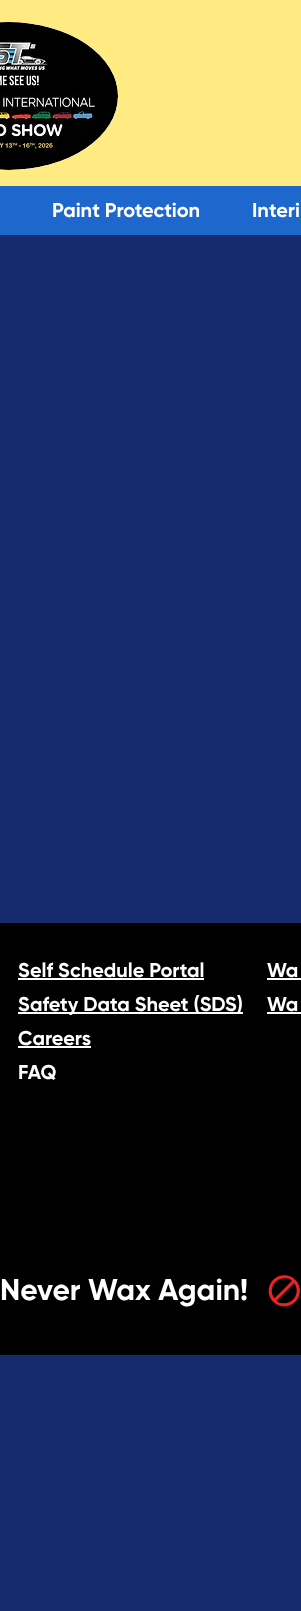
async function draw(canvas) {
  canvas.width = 301;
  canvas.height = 1611;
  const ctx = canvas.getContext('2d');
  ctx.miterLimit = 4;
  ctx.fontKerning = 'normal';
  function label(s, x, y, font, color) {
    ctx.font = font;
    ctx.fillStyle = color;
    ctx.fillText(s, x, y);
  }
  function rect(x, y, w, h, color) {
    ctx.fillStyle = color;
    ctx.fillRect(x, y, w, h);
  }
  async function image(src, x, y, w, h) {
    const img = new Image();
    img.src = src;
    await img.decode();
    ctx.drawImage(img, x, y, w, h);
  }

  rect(0, 0, 301, 1611, '#162b6f');
  rect(0, 0, 301, 186, '#ffeb81');
  ctx.fillStyle = '#fff';
  ctx.beginPath();
  ctx.ellipse(8.5, 96, 109.5, 74, 0, 0, 2 * Math.PI);
  ctx.fill();
  await image('assets/img1.png', 0, 22, 118, 148);
  rect(0, 186, 301, 49, '#1d67cd');
  label('Paint Protection', 52, 217, 'bold 20px Gilroy', '#fff');
  label('Interi', 252, 217, 'bold 20px Gilroy', '#fff');
  rect(0, 923, 301, 432, '#000');
  label('Self Schedule Portal', 18, 977, 'bold 20px Gilroy', '#fff');
  rect(18, 978, 186, 2, '#fff');
  rect(18, 1012, 225, 2, '#fff');
  label('Safety Data Sheet (SDS)', 18, 1011, 'bold 20px Gilroy', '#fff');
  label('Careers', 18, 1045, 'bold 20px Gilroy', '#fff');
  rect(18, 1046, 73, 2, '#fff');
  label('FAQ', 18, 1079, 'bold 20px Gilroy', '#fff');
  label('Wa', 267, 977, 'bold 20px Gilroy', '#fff');
  rect(267, 978, 34, 2, '#fff');
  label('Wa', 267, 1011, 'bold 20px Gilroy', '#fff');
  rect(267, 1012, 34, 2, '#fff');
  label('Never Wax Again!', 0, 1300, 'bold 30px Gilroy', '#fff');
  await image('assets/img2.png', 268, 1275, 32, 32);
}

draw(document.querySelector('canvas'));
